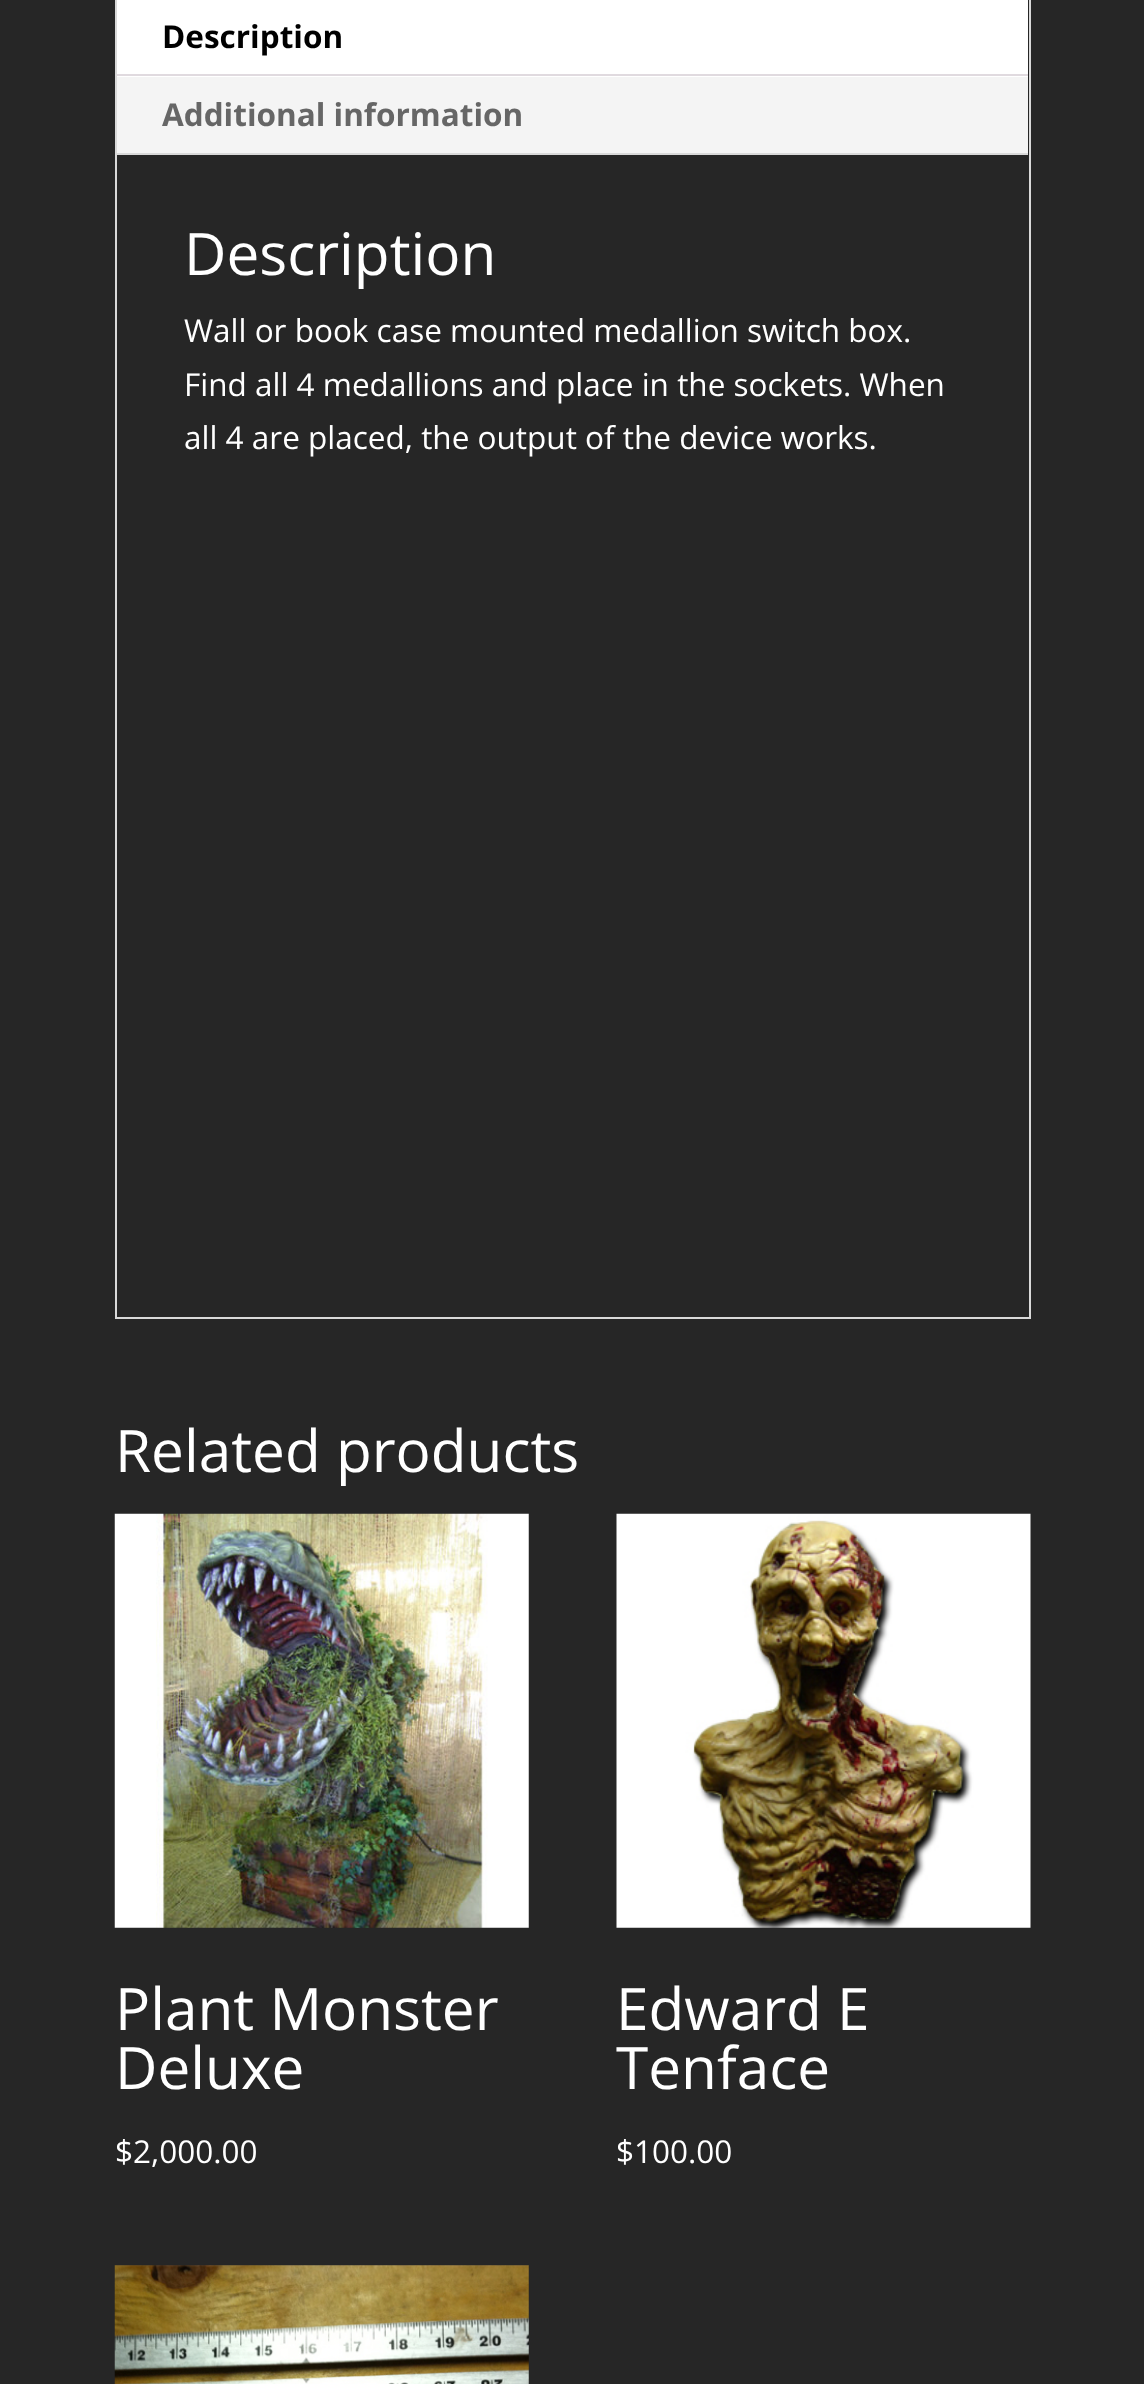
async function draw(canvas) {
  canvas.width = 1144;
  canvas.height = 2384;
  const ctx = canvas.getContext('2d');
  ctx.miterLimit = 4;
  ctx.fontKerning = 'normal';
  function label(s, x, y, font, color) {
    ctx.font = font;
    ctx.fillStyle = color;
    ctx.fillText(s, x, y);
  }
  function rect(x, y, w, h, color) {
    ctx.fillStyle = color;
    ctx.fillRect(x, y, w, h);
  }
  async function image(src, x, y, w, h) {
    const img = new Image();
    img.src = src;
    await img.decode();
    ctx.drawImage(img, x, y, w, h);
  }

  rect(0, 0, 1144, 2384, '#262626');
  ctx.strokeStyle = '#d9d9d9';
  ctx.lineWidth = 2;
  ctx.strokeRect(116, -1, 914, 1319);
  rect(117, 77, 911, 76, '#f4f4f4');
  rect(117, 0, 911, 77, '#fff');
  rect(117, 74, 911, 2, '#e0dadf');
  label('Description', 162, 48, 'bold 31.5px Open Sans', '#000');
  label('Additional information', 162, 126, 'bold 31.5px Open Sans', '#666');
  rect(117, 153, 911, 2, '#d9d9d9');
  label('Description', 184, 275, '58.5px Open Sans', '#fff');
  label('Wall or book case mounted medallion switch box.', 184, 342, '31.5px Open Sans', '#fff');
  label('Find all 4 medallions and place in the sockets. When', 184, 396, '31.5px Open Sans', '#fff');
  label('all 4 are placed, the output of the device works.', 184, 449, '31.5px Open Sans', '#fff');
  label('Related products', 115, 1472, '58.5px Open Sans', '#fff');
  await image('assets/img1.png', 114, 1513, 415, 415);
  label('Plant Monster', 115, 2030, '58.5px Open Sans', '#fff');
  label('Deluxe', 115, 2089, '58.5px Open Sans', '#fff');
  label('$2,000.00', 115, 2163, '31.5px Open Sans', '#fff');
  await image('assets/img2.png', 616, 1513, 415, 415);
  label('Edward E', 616, 2030, '58.5px Open Sans', '#fff');
  label('Tenface', 616, 2089, '58.5px Open Sans', '#fff');
  label('$100.00', 616, 2163, '31.5px Open Sans', '#fff');
  await image('assets/img3.png', 114, 2265, 415, 119);
}

draw(document.querySelector('canvas'));
